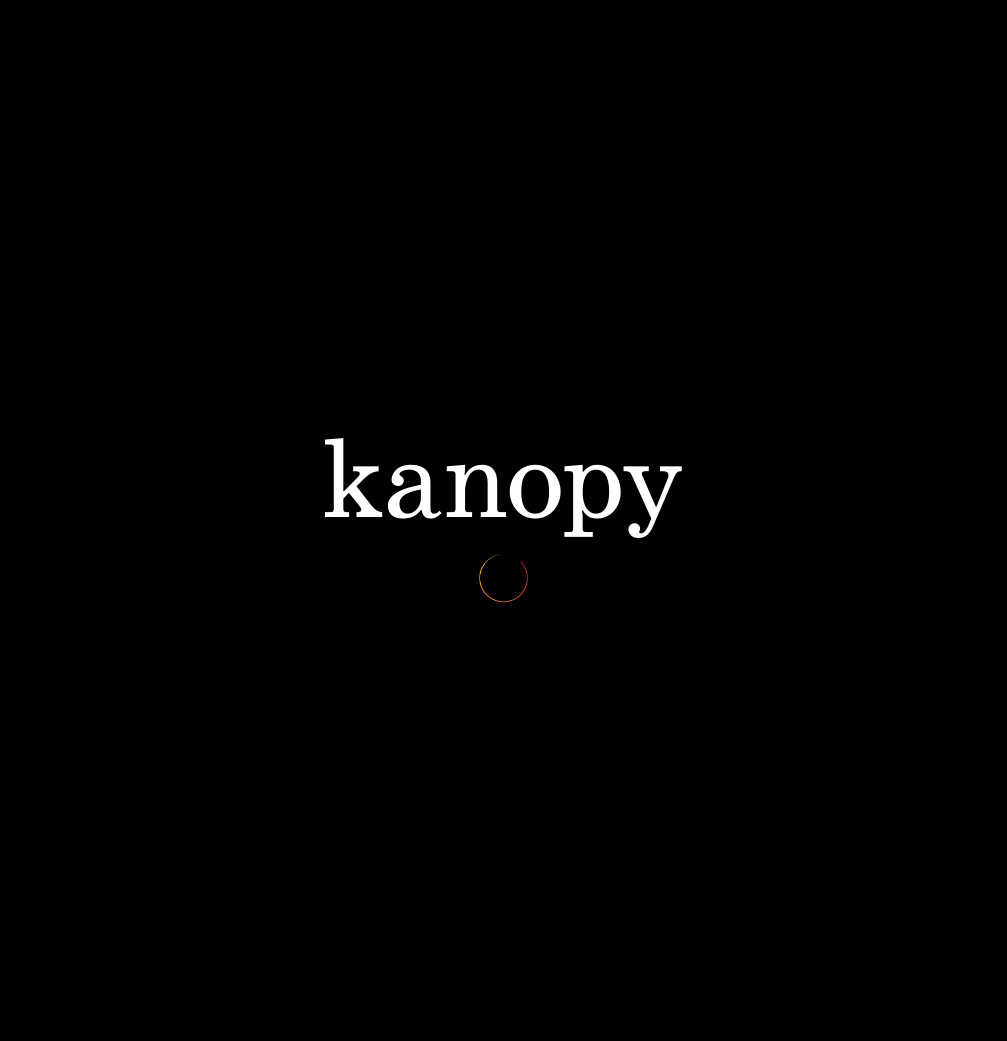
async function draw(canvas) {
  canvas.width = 1007;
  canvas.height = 1041;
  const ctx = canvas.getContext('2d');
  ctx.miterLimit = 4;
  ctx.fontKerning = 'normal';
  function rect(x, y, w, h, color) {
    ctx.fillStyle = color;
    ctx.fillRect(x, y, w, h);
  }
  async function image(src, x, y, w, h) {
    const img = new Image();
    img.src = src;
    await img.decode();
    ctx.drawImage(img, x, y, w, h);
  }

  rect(0, 0, 1007, 1041, '#000');
  await image('assets/img1.png', 325, 438, 357, 100);
  await image('assets/img2.png', 479, 554, 49, 49);
}

draw(document.querySelector('canvas'));
